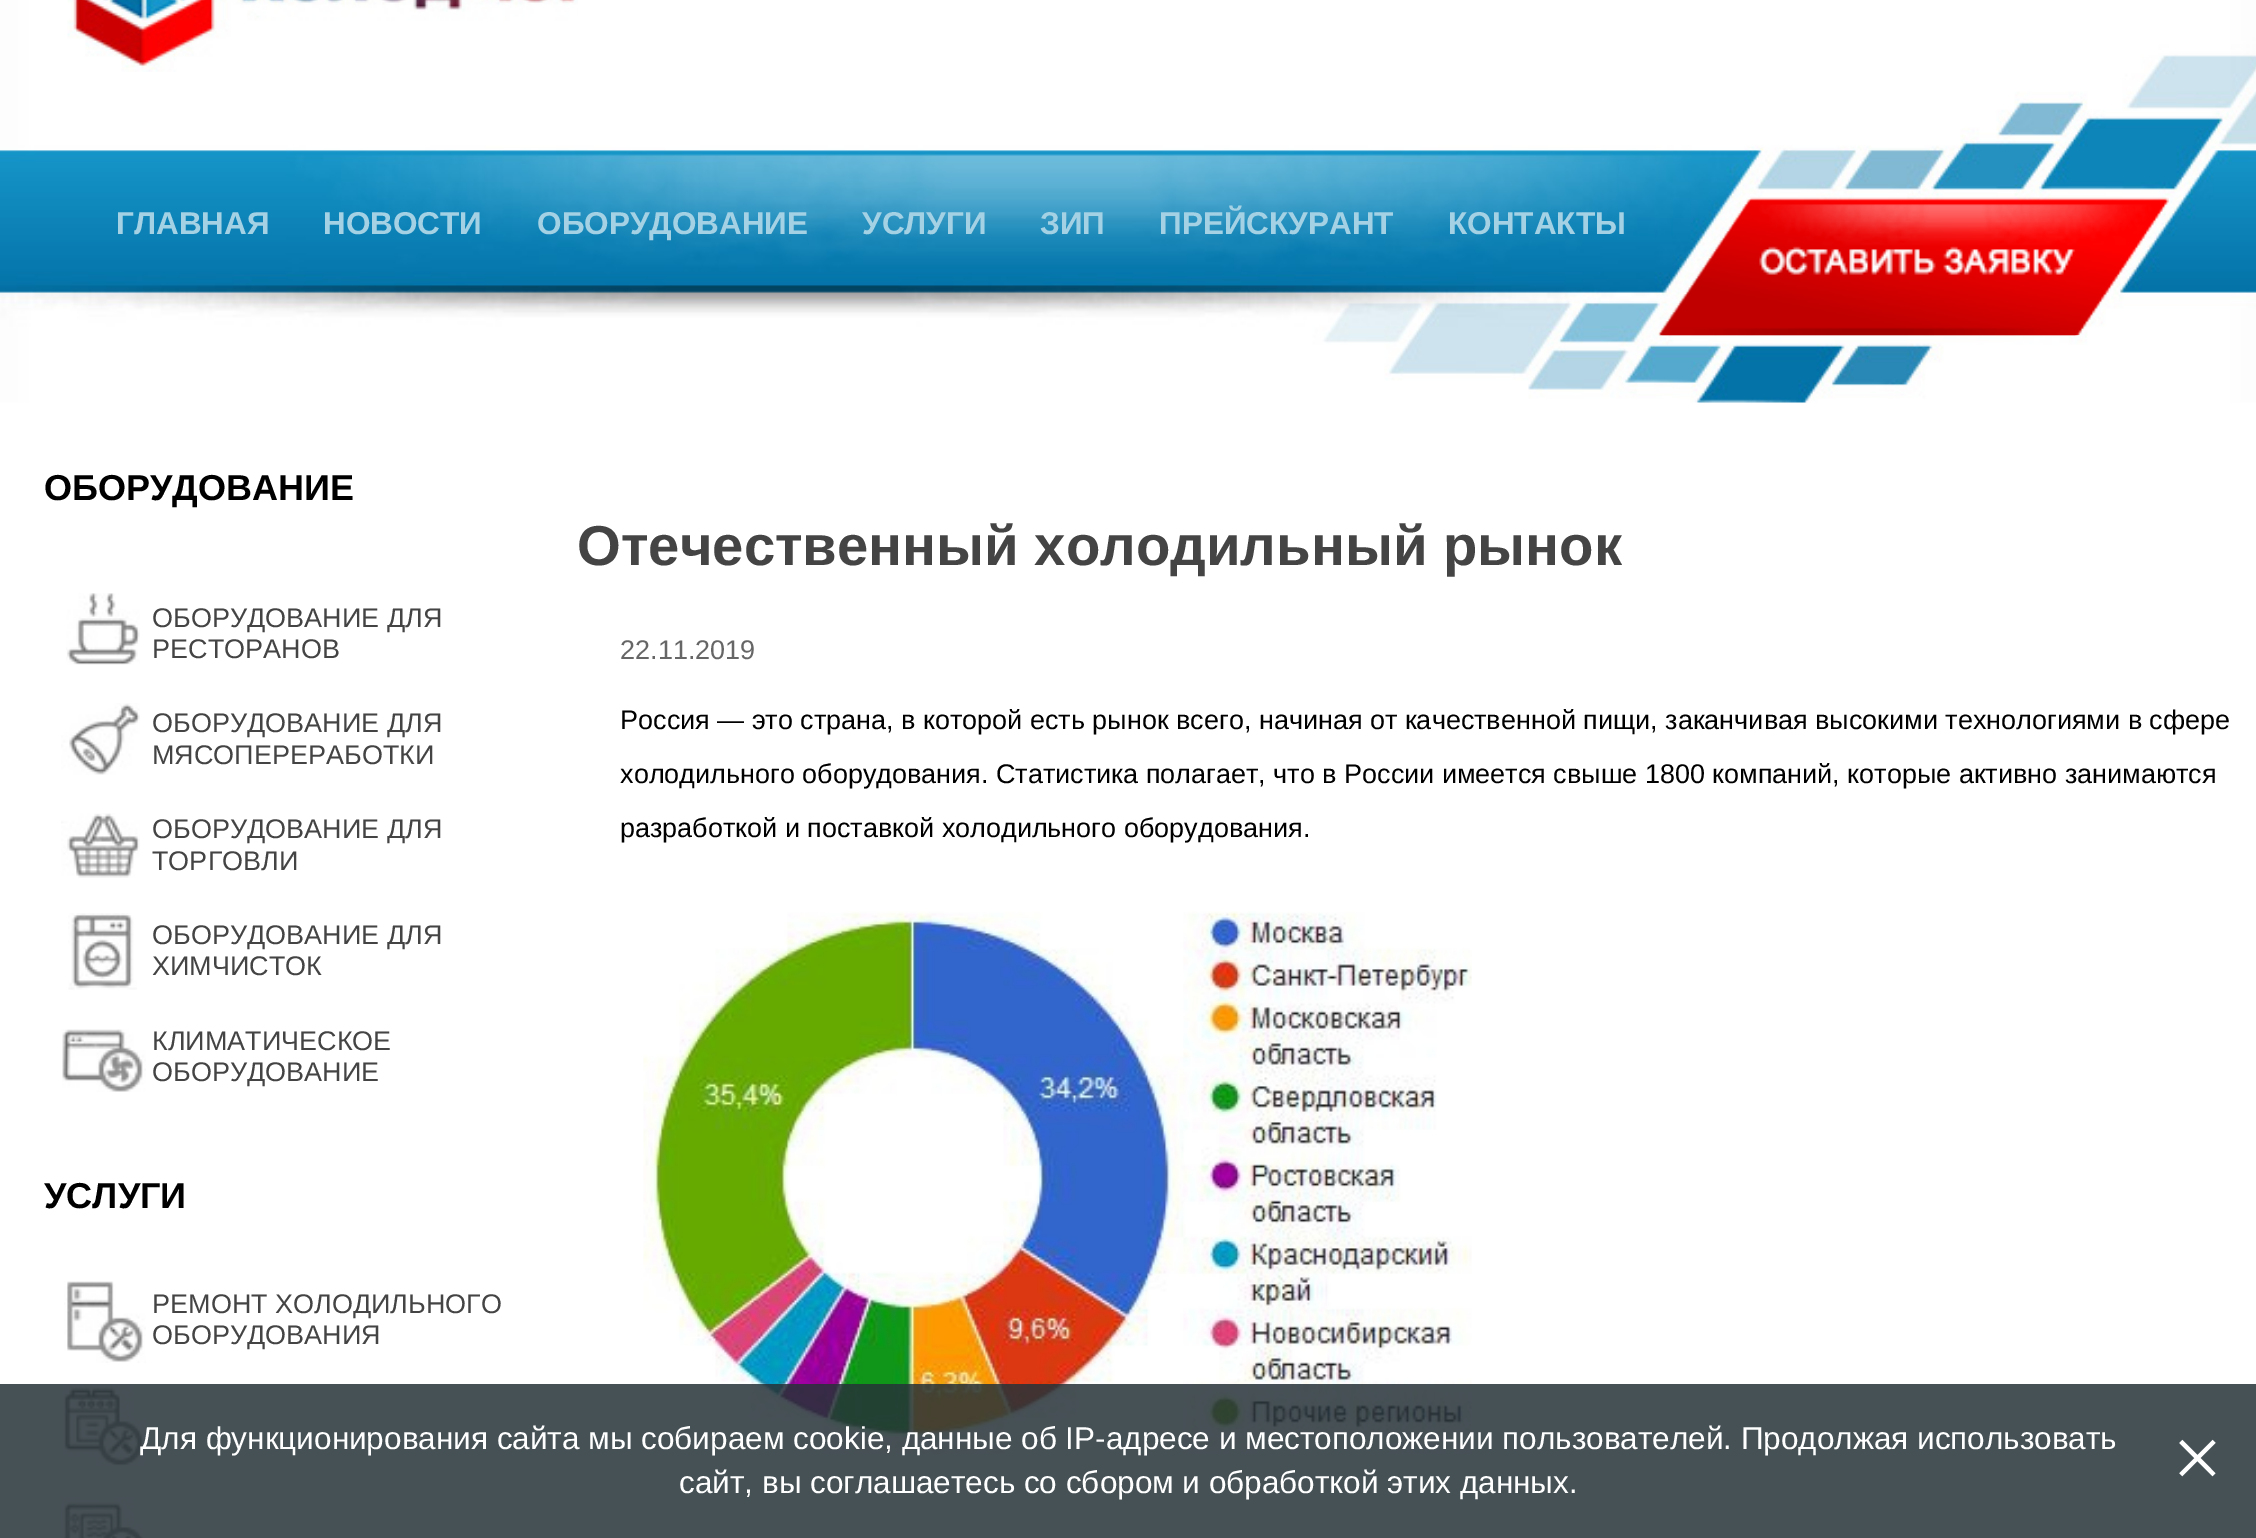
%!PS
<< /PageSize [2256 1538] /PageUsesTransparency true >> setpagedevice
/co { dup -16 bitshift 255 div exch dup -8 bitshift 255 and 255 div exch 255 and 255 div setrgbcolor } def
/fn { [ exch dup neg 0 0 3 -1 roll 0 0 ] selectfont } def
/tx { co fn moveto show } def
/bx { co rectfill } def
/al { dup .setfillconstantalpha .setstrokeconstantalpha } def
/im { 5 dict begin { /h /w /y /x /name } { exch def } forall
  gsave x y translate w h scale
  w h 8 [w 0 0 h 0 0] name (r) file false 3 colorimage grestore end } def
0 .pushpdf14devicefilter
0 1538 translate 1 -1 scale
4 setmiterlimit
0 0 2256 1538 16#FFFFFF bx
(media/1.raw) 0 0 2256 403 im
(media/2.raw) 67 0 511 72 im
(media/3.raw) 1660 197 509 138 im
(media/4.raw) 66 593 74 72 im
(media/5.raw) 61 703 79 72 im
(media/6.raw) 61 813 79 65 im
(media/7.raw) 68 913 69 77 im
(media/8.raw) 62 1029 84 63 im
(media/9.raw) 64 1281 82 82 im
(media/10.raw) 63 1384 83 82 im
(media/11.raw) 61 1497 82 41 im
(media/12.raw) 643 911 829 543 im
0.85 al
0 1384 2256 154 16#263238 bx
1 al
(ГЛАВНАЯ) 116 234 /LiberationSans-Bold 31.5 16#A4D1E4 tx
(НОВОСТИ) 323 234 /LiberationSans-Bold 31.5 16#A4D1E4 tx
(ОБОРУДОВАНИЕ) 537 234 /LiberationSans-Bold 31.5 16#A4D1E4 tx
(УСЛУГИ) 862 234 /LiberationSans-Bold 31.5 16#A4D1E4 tx
(ЗИП) 1040 234 /LiberationSans-Bold 31.5 16#A4D1E4 tx
(ПРЕЙСКУРАНТ) 1159 234 /LiberationSans-Bold 31.5 16#A4D1E4 tx
(КОНТАКТЫ) 1448 234 /LiberationSans-Bold 31.5 16#A4D1E4 tx
(OБОРУДОВАНИЕ) 44 500 /LiberationSans-Bold 36 16#000000 tx
(ОБОРУДОВАНИЕ ДЛЯ) 152 627 /LiberationSans-Regular 27 16#444444 tx
(РЕСТОРАНОВ) 152 658 /LiberationSans-Regular 27 16#444444 tx
(OБОРУДОВАНИЕ ДЛЯ) 152 732 /LiberationSans-Regular 27 16#444444 tx
(МЯСОПЕРЕРАБОТКИ) 152 764 /LiberationSans-Regular 27 16#444444 tx
(ОБОРУДОВАНИЕ ДЛЯ) 152 838 /LiberationSans-Regular 27 16#444444 tx
(ТОРГОВЛИ) 152 870 /LiberationSans-Regular 27 16#444444 tx
(ОБОРУДОВАНИЕ ДЛЯ) 152 944 /LiberationSans-Regular 27 16#444444 tx
(ХИМЧИСТОК) 152 975 /LiberationSans-Regular 27 16#444444 tx
(КЛИМАТИЧЕСКОЕ) 152 1050 /LiberationSans-Regular 27 16#444444 tx
(ОБОРУДОВАНИЕ) 152 1081 /LiberationSans-Regular 27 16#444444 tx
(УСЛУГИ) 44 1208 /LiberationSans-Bold 36 16#000000 tx
(РЕМОНТ ХОЛОДИЛЬНОГО) 152 1313 /LiberationSans-Regular 27 16#444444 tx
(ОБОРУДОВАНИЯ) 152 1344 /LiberationSans-Regular 27 16#444444 tx
(Отечественный холодильный рынок) 577 565 /LiberationSans-Bold 56.25 16#444444 tx
(22.11.2019) 620 659 /LiberationSans-Regular 27 16#666666 tx
(Россия — это страна, в которой есть рынок всего, начиная от качественной пищи, заканчивая высокими технологиями в сфере) 620 729 /LiberationSans-Regular 27 16#000000 tx
(холодильного оборудования. Статистика полагает, что в России имеется свыше 1800 компаний, которые активно занимаются) 620 783 /LiberationSans-Regular 27 16#000000 tx
(разработкой и поставкой холодильного оборудования.) 620 837 /LiberationSans-Regular 27 16#000000 tx
(Для функционирования сайта мы собираем cookie, данные об IP-адресе и местоположении пользователей. Продолжая использовать) 140 1449 /LiberationSans-Regular 31.5 16#FFFFFF tx
(×) 2172 1488 /LiberationSerif-Regular 90 16#FFFFFF tx
(сайт, вы соглашаетесь со сбором и обработкой этих данных.) 679 1493 /LiberationSans-Regular 31.5 16#FFFFFF tx
.poppdf14devicefilter showpage
